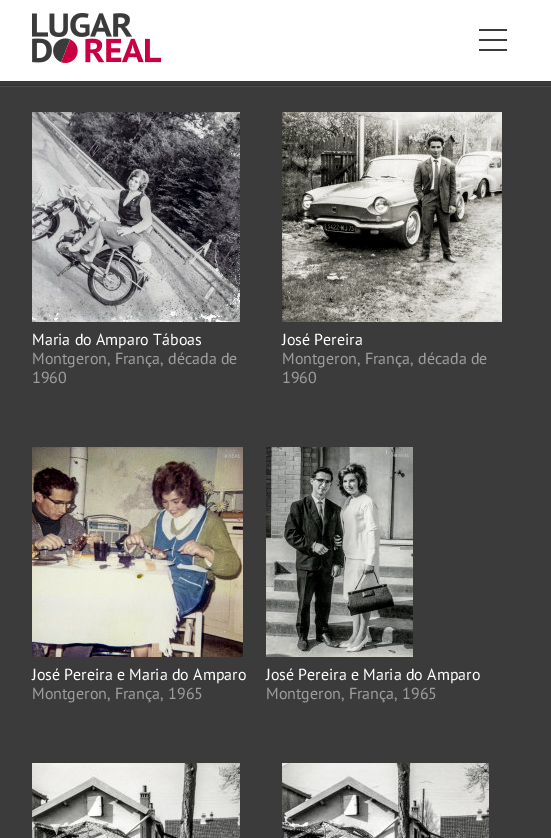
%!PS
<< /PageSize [551 838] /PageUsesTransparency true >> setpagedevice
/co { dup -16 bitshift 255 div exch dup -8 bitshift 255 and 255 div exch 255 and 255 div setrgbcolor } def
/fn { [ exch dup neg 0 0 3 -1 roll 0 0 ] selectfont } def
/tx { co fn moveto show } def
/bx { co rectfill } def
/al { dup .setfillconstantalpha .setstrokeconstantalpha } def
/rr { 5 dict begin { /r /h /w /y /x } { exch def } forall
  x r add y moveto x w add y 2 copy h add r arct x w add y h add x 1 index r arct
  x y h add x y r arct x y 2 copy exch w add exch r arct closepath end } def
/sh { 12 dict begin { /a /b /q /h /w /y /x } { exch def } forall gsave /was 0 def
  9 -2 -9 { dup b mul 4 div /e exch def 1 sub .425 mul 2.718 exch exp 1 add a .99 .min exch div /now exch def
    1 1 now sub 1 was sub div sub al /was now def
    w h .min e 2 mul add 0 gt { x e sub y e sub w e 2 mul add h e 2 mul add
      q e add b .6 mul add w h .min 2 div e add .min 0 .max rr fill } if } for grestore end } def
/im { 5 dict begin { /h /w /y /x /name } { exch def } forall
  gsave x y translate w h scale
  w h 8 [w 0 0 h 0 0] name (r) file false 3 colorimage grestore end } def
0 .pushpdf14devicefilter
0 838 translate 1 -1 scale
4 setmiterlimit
0 0 551 838 16#3B3B3B bx
16#000000 co
0 0 551 81 0 1 .3 sh
0 0 551 81 16#FFFFFF bx
(media/1.raw) 32 13 129 50 im
479 29 28 2 16#3B3B3B bx
479 39 28 2 16#3B3B3B bx
479 49 28 2 16#3B3B3B bx
0 86 551 1 16#4F4F4F bx
0 85 551 1 16#313131 bx
(media/2.raw) 32 112 208 210 im
(media/3.raw) 282 112 220 210 im
(media/4.raw) 32 447 211 210 im
(media/5.raw) 266 447 147 210 im
(media/6.raw) 32 763 208 75 im
(media/7.raw) 282 763 207 75 im
(Maria do Amparo Táboas) 32 345 /PTSans-Regular 16 16#FFFFFF tx
(Montgeron, França, década de) 32 364 /PTSans-Regular 16 16#9D9D9D tx
(1960) 32 383 /PTSans-Regular 16 16#9D9D9D tx
(José Pereira) 282 345 /PTSans-Regular 16 16#FFFFFF tx
(Montgeron, França, década de) 282 364 /PTSans-Regular 16 16#9D9D9D tx
(1960) 282 383 /PTSans-Regular 16 16#9D9D9D tx
(José Pereira e Maria do Amparo) 32 680 /PTSans-Regular 16 16#FFFFFF tx
(Montgeron, França, 1965) 32 699 /PTSans-Regular 16 16#9D9D9D tx
(José Pereira e Maria do Amparo) 266 680 /PTSans-Regular 16 16#FFFFFF tx
(Montgeron, França, 1965) 266 699 /PTSans-Regular 16 16#9D9D9D tx
.poppdf14devicefilter showpage
